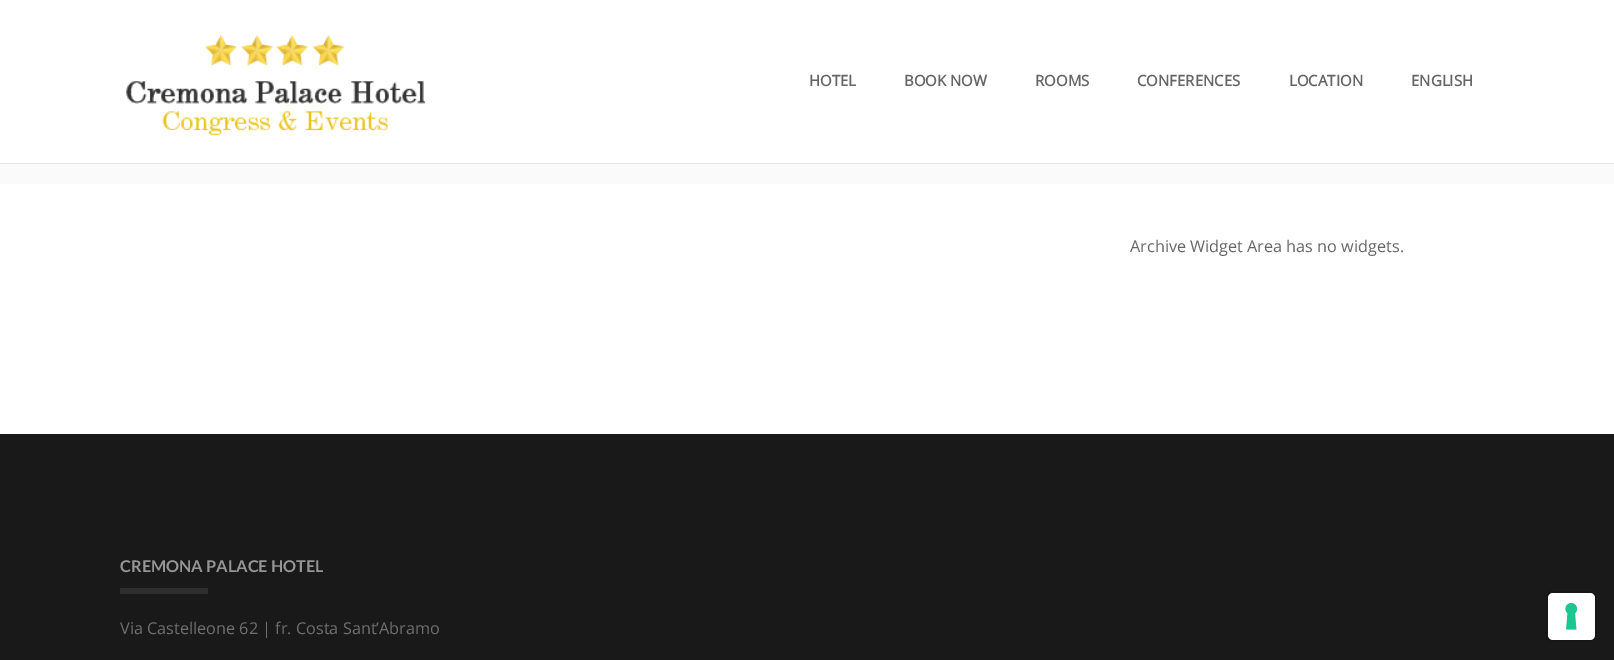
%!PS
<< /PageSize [1614 660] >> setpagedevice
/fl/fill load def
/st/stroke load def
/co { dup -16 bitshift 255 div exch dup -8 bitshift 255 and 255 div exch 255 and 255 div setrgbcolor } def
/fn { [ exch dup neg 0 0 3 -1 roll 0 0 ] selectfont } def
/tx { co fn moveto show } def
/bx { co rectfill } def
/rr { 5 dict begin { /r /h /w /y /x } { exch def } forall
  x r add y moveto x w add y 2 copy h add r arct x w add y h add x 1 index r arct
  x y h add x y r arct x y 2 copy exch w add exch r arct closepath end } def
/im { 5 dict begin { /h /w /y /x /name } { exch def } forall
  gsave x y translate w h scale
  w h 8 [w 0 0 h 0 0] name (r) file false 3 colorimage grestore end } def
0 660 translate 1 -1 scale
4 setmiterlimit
0 0 1614 660 16#FFFFFF bx
0 163 1614 1 16#E6E6E6 bx
(media/1.raw) 126 35 300 101 im
0 164 1614 20 16#FAFAFA bx
0 434 1614 226 16#191919 bx
120 588 88 6 16#2E2E2E bx
16#151515 co
1546.5 591.5 49 49 5.5 rr st
16#FFFFFF co
1548 593 47 47 5 rr fl
(media/2.raw) 1565 602 13 28 im
(HOTEL) 809 86 /OpenSans-Bold 15 16#666666 tx
(BOOK NOW) 904 86 /OpenSans-Bold 15 16#666666 tx
(ROOMS) 1035 86 /OpenSans-Bold 15 16#666666 tx
(CONFERENCES) 1137 86 /OpenSans-Bold 15 16#666666 tx
(LOCATION) 1289 86 /OpenSans-Bold 15 16#666666 tx
(ENGLISH) 1411 86 /OpenSans-Bold 15 16#666666 tx
(Archive Widget Area has no widgets.) 1130 252 /OpenSans-Regular 16.25 16#666666 tx
(CREMONA PALACE HOTEL) 120 572 /Lato-Bold 16.25 16#959595 tx
(Via Castelleone 62 | fr. Costa Sant’Abramo) 120 634 /OpenSans-Regular 16.25 16#6F6F6F tx
showpage
